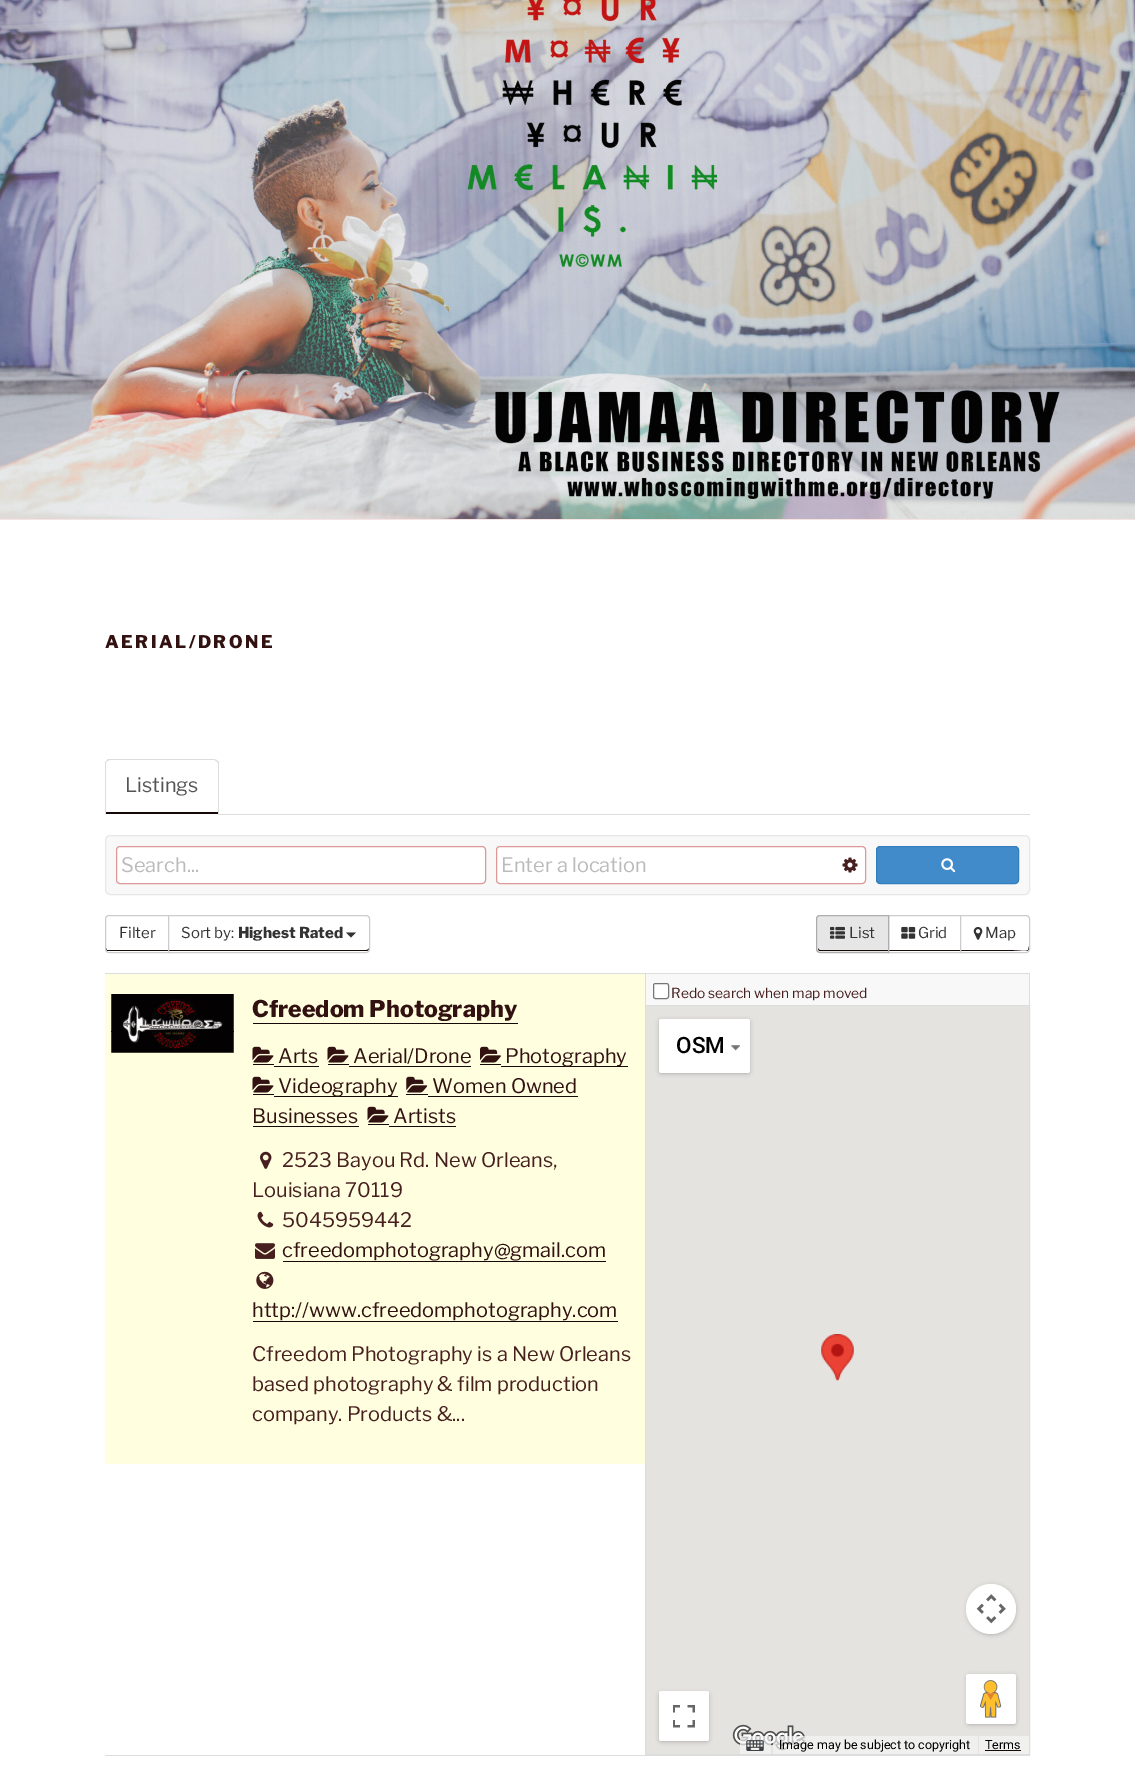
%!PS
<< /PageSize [1135 1788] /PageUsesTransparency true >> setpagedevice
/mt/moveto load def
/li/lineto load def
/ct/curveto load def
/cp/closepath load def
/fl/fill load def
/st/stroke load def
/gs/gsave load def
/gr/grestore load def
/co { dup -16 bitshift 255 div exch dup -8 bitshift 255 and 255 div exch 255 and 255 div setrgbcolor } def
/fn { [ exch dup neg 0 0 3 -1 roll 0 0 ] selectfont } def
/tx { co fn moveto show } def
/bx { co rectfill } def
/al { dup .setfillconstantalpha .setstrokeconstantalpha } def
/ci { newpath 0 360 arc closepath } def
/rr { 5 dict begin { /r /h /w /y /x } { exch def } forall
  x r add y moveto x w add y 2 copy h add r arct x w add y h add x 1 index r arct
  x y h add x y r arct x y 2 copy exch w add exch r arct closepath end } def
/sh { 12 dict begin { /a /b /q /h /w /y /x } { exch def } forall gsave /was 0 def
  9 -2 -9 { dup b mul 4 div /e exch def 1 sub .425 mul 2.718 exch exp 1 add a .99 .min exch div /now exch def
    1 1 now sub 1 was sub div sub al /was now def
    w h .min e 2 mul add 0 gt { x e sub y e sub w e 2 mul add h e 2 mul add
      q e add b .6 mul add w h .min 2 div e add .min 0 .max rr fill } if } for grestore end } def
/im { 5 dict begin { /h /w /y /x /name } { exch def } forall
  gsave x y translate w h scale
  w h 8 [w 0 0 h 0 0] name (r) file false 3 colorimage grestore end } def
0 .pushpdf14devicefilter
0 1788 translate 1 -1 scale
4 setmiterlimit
0 0 1135 1788 16#FFFFFF bx
0 519 1135 1 16#F6E4E4 bx
(media/1.raw) 0 0 1135 519 im
219 814 811 1 16#DDDDDD bx
106 812 112 2 16#170808 bx
16#DDDDDD co
110 759 mt 109 759 107 759 107 760 ct 107 761 li 110 760 li 214 760 li 216 761 li 217 760 li 214 759 li cp fl
217 760 mt 219 762 li 219 815 li 218 814 li 218 763 li 216 761 li cp fl
105 815 mt 106 814 li 106 763 li 107 761 li 107 760 li 106 761 105 762 105 764 ct cp fl
16#F8F8F8 co
105.5 835.5 924 59 4.5 rr gs fl gr
16#E7E7E7 co
st
16#FFFFFF co
116.5 846.5 369 37 3.5 rr gs fl gr
16#DD9898 co
st
16#FFFFFF co
496.5 846.5 369 37 3.5 rr gs fl gr
16#DD9898 co
st
(media/2.raw) 842 857 16 16 im
16#428BCA co
876.5 846.5 142 37 3.5 rr gs fl gr
16#357EBD co
st
(media/3.raw) 941 858 15 15 im
105 973 925 1 16#DDDDDD bx
16#170808 co
106 948 mt 106 950 107 951 108 951 ct 168 951 li 168 950 li 107 950 li cp fl
16#CCCCCC co
109 915.5 mt 168.5 915.5 li 168.5 952.5 li 109 952.5 li 107 952.5 105.5 951 105.5 949 ct 105.5 919 li 105.5 917 107 915.5 109 915.5 ct cp st
16#FFFFFF co
168 915 mt 366 915 li 368 915 370 917 370 919 ct 370 949 li 370 951 368 953 366 953 ct 168 953 li cp fl
16#170808 co
169 950 mt 169 951 li 366 951 li 368 951 369 950 369 948 ct 369 949 368 950 366 950 ct cp fl
16#CCCCCC co
168.5 915.5 mt 366 915.5 li 368 915.5 369.5 917 369.5 919 ct 369.5 949 li 369.5 951 368 952.5 366 952.5 ct 168.5 952.5 li cp st
16#333333 co
346 932.5 mt 356 932.5 li 351 937.5 li cp fl
889 950 71 1 16#170808 bx
16#CCCCCC co
888.5 915.5 72 37 rectstroke
16#E6E6E6 co
820 915 mt 889 915 li 889 953 li 820 953 li 818 953 816 951 816 949 ct 816 919 li 816 917 818 915 820 915 ct cp fl
16#170808 co
818 948 mt 818 950 819 951 820 951 ct 888 951 li 888 950 li 820 950 li 819 950 818 949 818 948 ct cp fl
16#ADADAD co
820 915.5 mt 888.5 915.5 li 888.5 952.5 li 820 952.5 li 818 952.5 816.5 951 816.5 949 ct 816.5 919 li 816.5 917 818 915.5 820 915.5 ct cp st
(media/4.raw) 830 926 15 13 im
(media/5.raw) 901 926 15 13 im
16#FFFFFF co
960 915 mt 1026 915 li 1028 915 1030 917 1030 919 ct 1030 949 li 1030 951 1028 953 1026 953 ct 960 953 li cp fl
16#170808 co
961 950 mt 961 951 li 1026 951 li 1028 951 1029 950 1029 948 ct 1029 946 li 1029 948 1028 949 1028 950 ct 1025 952 1020 950 1005 950 ct cp 1029 919 mt 1029 918 li cp eofill
16#CCCCCC co
960.5 915.5 mt 1026 915.5 li 1028 915.5 1029.5 917 1029.5 919 ct 1029.5 949 li 1029.5 951 1028 952.5 1026 952.5 ct 960.5 952.5 li cp st
(media/6.raw) 973 927 10 13 im
105 974 540 490 16#FFFFE0 bx
(media/7.raw) 111 994 123 59 im
253 1023 265 1 16#170808 bx
253 1064 21 1 16#170808 bx
274 1066 45 1 16#170808 bx
(media/8.raw) 252 1046 22 17 im
328 1064 21 1 16#170808 bx
349 1066 122 1 16#170808 bx
(media/8.raw) 327 1046 22 17 im
480 1064 21 1 16#170808 bx
501 1066 127 1 16#170808 bx
(media/9.raw) 480 1046 21 17 im
406 1094 22 1 16#170808 bx
428 1096 150 1 16#170808 bx
253 1126 106 1 16#170808 bx
(media/10.raw) 406 1076 22 17 im
253 1094 21 1 16#170808 bx
274 1096 124 1 16#170808 bx
(media/8.raw) 252 1076 22 17 im
368 1124 21 1 16#170808 bx
389 1126 67 1 16#170808 bx
(media/8.raw) 367 1106 22 17 im
(media/11.raw) 260 1151 12 18 im
(media/12.raw) 257 1211 17 17 im
(media/13.raw) 255 1243 20 16 im
283 1261 323 1 16#170808 bx
(media/14.raw) 256 1271 18 18 im
253 1321 365 1 16#170808 bx
646 974 383 31 16#F8F8F8 bx
1029 973 1 32 16#DDDDDD bx
645 973 1 32 16#DDDDDD bx
16#FFFFFF co
653.5 983.5 15 15 2 rr gs fl gr
16#767676 co
st
16#DDDDDD co
645.5 1005.5 384 749 rectstroke
646 1006 383 748 16#E5E3DF bx
16#000000 co
660 1021 89 52 1 2.5 .3 sh
16#FFFFFF co
659 1019 91 54 2.5 rr fl
(media/15.raw) 731 1045 9 6 im
(media/16.raw) 821 1334 33 47 im
16#000000 co
660 1694 48 47 1 2.5 .3 sh
16#FFFFFF co
659 1691 50 50 2.5 rr fl
(media/17.raw) 673 1705 22 23 im
(media/18.raw) 732 1724 74 27 im
16#000000 co
968 1586 47 48 23.5 2.5 .3 sh
16#FFFFFF co
991 1609 25 ci fl
(media/19.raw) 976 1594 30 30 im
16#000000 co
968 1676 47 48 1 2.5 .3 sh
16#FFFFFF co
966 1674 50 50 2.5 rr fl
(media/20.raw) 980 1680 22 38 im
0.7 al
740 1736 31 18 16#F5F5F5 bx
1 al
(media/21.raw) 746 1740 18 11 im
0.7 al
773 1736 205 18 16#F5F5F5 bx
1 al
979 1736 50 18 16#F0F0EE bx
985 1750 36 1 16#170808 bx
105 1755 925 1 16#DDDDDD bx
/LibreFranklin-Thin 17.5 fn
16#321111 co
105 648 mt 2.5 0 (AERIAL/DRONE) ashow
(Listings) 125 792 /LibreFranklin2-Thin 20 16#555555 tx
(Search...) 121 872 /LibreFranklin2-Thin 20 16#BBBBBB tx
(Enter a location) 501 872 /LibreFranklin2-Thin 20 16#BBBBBB tx
(Filter) 119 938 /LibreFranklin2-Thin 15 16#333333 tx
(Sort by:) 181 938 /LibreFranklin2-Thin 15 16#333333 tx
(Highest Rated) 238 938 /LibreFranklin-Thin 15 16#333333 tx
(List) 849 938 /LibreFranklin2-Thin 15 16#333333 tx
(Grid) 918 938 /LibreFranklin2-Thin 15 16#333333 tx
(Map) 985 938 /LibreFranklin2-Thin 15 16#333333 tx
(Cfreedom Photography) 252 1017 /LibreFranklin-Thin 23 16#321111 tx
(Arts) 278 1063 /LibreFranklin2-Thin 20 16#321111 tx
(Aerial/Drone) 353 1063 /LibreFranklin2-Thin 20 16#321111 tx
(Photography) 505 1063 /LibreFranklin2-Thin 20 16#321111 tx
(Women Owned) 432 1093 /LibreFranklin2-Thin 20 16#321111 tx
(Businesses) 252 1123 /LibreFranklin2-Thin 20 16#321111 tx
(Videography) 278 1093 /LibreFranklin2-Thin 20 16#321111 tx
(Artists) 393 1123 /LibreFranklin2-Thin 20 16#321111 tx
(2523 Bayou Rd. New Orleans,) 282 1167 /LibreFranklin2-Thin 20 16#471F1F tx
(Louisiana 70119) 252 1197 /LibreFranklin2-Thin 20 16#471F1F tx
(5045959442) 282 1227 /LibreFranklin2-Thin 20 16#471F1F tx
(cfreedomphotography@gmail.com) 282 1257 /LibreFranklin2-Thin 20 16#321111 tx
(http://www.cfreedomphotography.com) 252 1317 /LibreFranklin2-Thin 20 16#321111 tx
(Cfreedom Photography is a New Orleans) 252 1361 /LibreFranklin2-Thin 20 16#471F1F tx
(based photography & film production) 252 1391 /LibreFranklin2-Thin 20 16#471F1F tx
(company. Products &...) 252 1421 /LibreFranklin2-Thin 20 16#471F1F tx
(Redo search when map moved) 671 998 /LibreFranklin2-Thin 13.75 16#471F1F tx
(OSM) 676 1053 /Roboto-Medium 22.5 16#000000 tx
(Image may be subject to copyright) 779 1749 /Roboto-Regular 12.5 16#000000 tx
(Terms) 985 1749 /Roboto-Regular 12.5 16#000000 tx
.poppdf14devicefilter showpage
